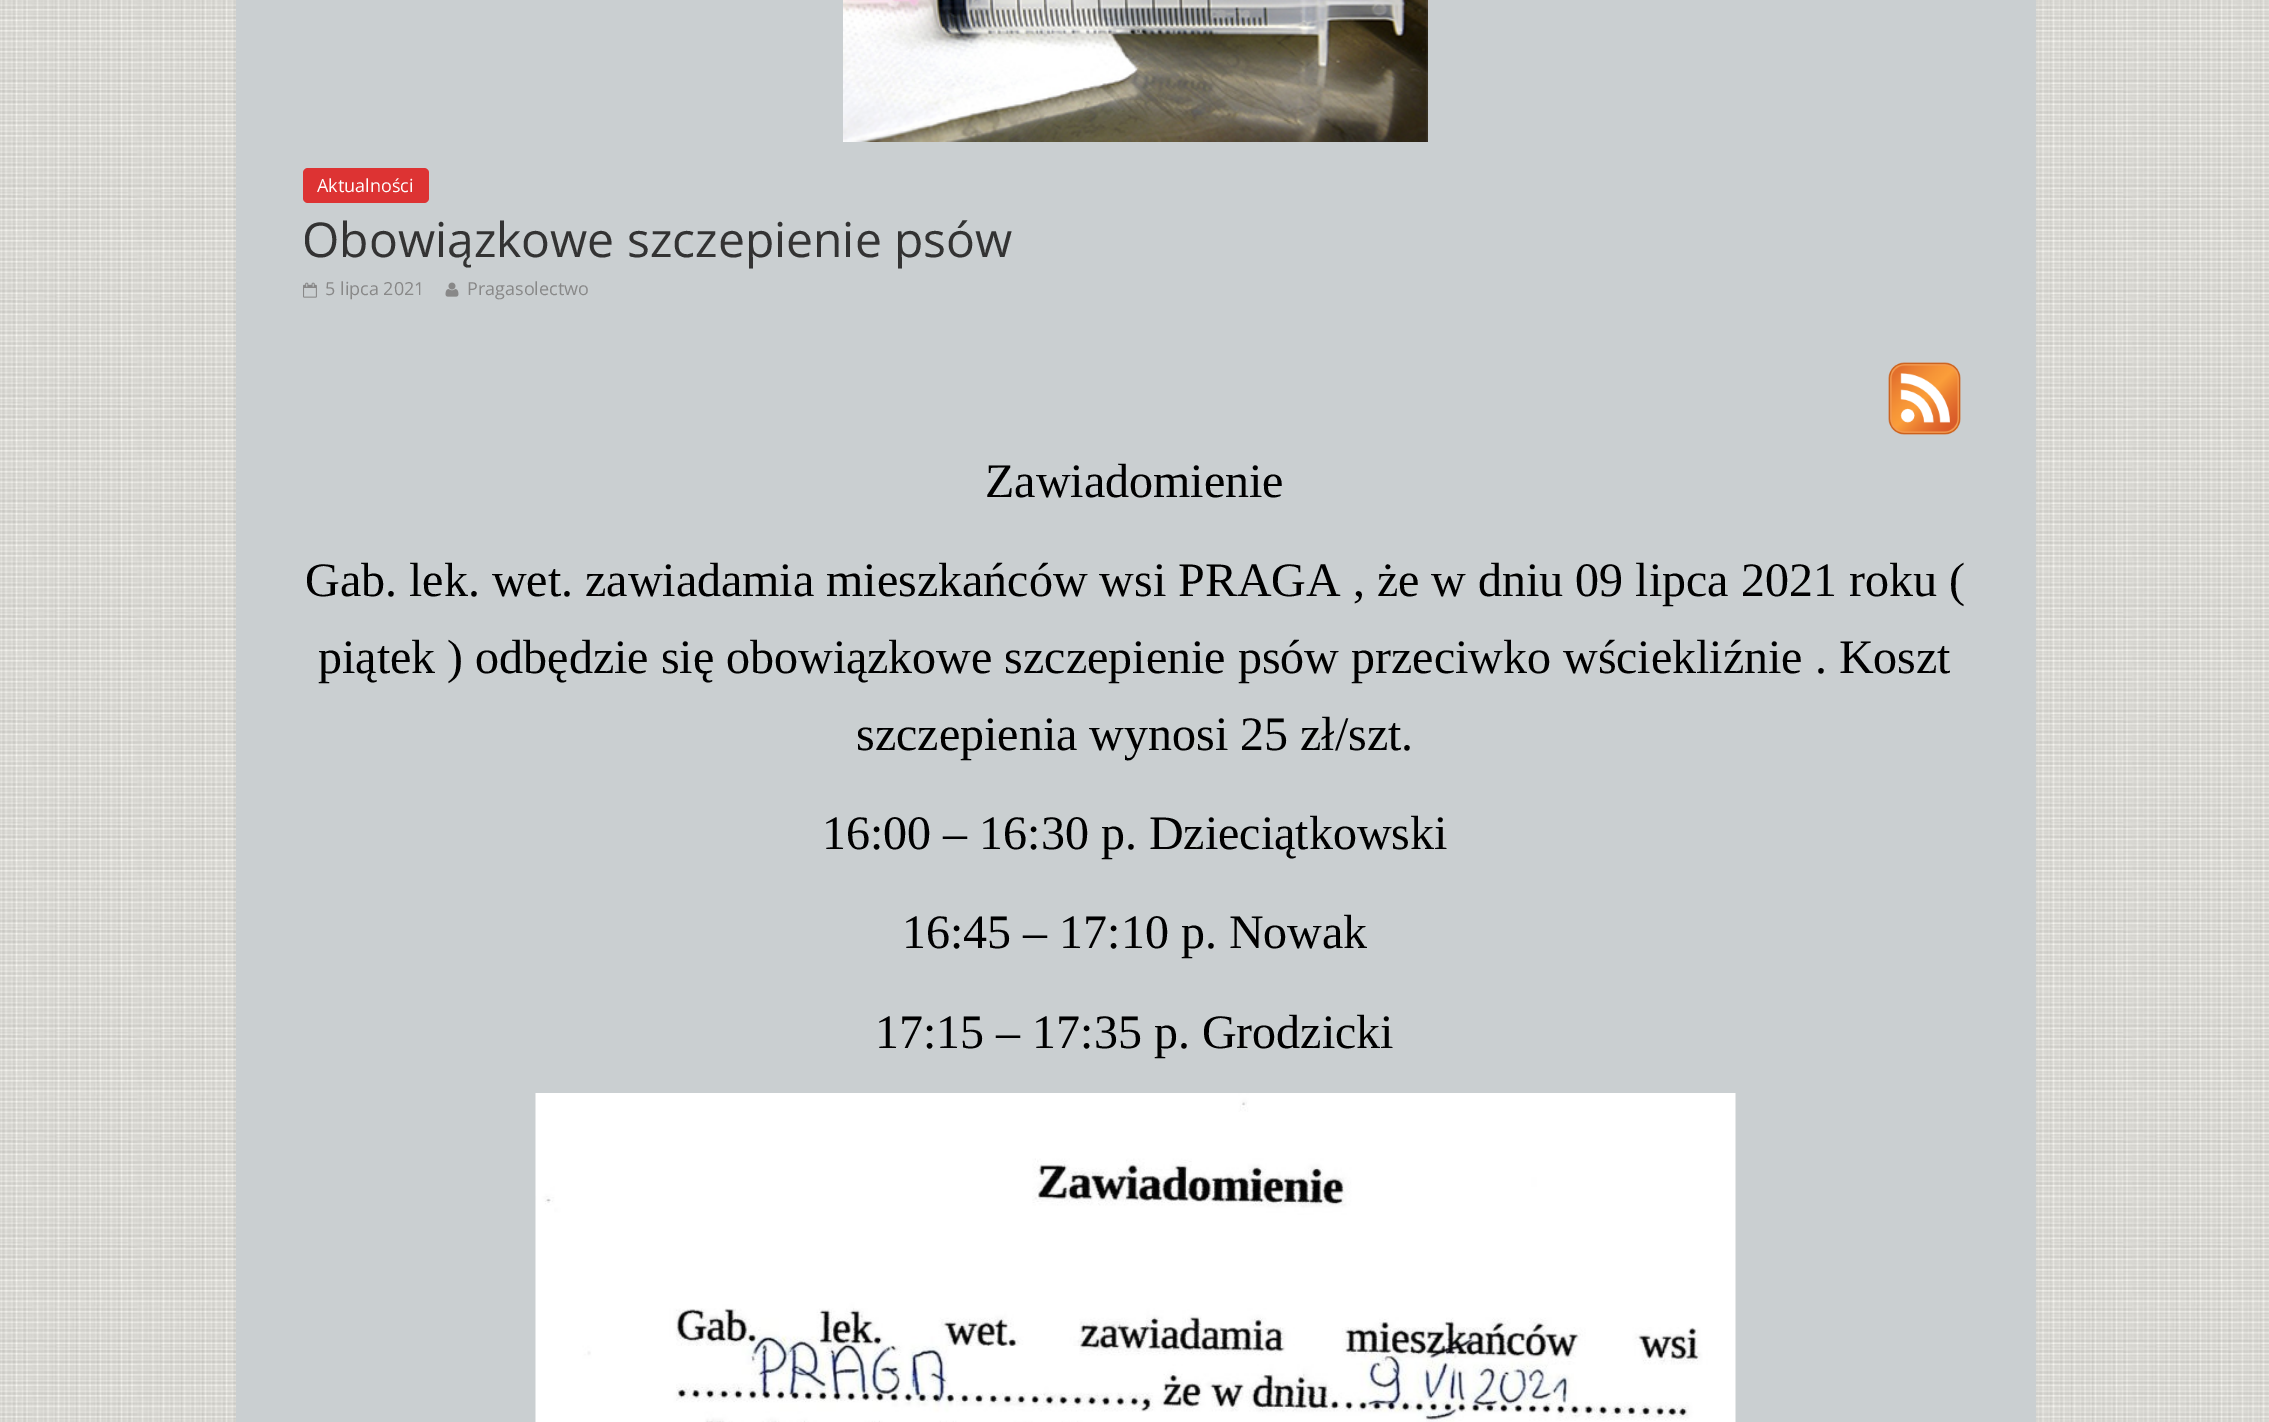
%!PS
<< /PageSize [2269 1422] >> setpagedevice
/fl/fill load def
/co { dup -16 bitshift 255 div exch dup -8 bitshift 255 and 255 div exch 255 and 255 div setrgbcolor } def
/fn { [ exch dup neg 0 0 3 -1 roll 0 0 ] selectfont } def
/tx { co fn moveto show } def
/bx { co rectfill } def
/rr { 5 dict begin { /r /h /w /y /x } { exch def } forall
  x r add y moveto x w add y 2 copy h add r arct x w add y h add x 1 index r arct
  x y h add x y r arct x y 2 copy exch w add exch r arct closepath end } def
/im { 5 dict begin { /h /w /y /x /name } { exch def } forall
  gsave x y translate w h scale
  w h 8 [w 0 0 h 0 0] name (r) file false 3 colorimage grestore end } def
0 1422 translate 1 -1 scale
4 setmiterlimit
0 0 2269 1422 16#FFFFFF bx
(media/1.raw) 0 0 2269 1422 im
236 0 1800 1422 16#CACFD1 bx
(media/2.raw) 843 0 585 142 im
16#DD3333 co
303 168 126 35 5 rr fl
(media/3.raw) 303 282 14 16 im
(media/4.raw) 445 282 14 15 im
(media/5.raw) 1888 362 73 73 im
(media/6.raw) 535 1093 1201 329 im
(Aktualności) 317 192 /OpenSans-Regular 18 16#FFFFFF tx
(Obowiązkowe szczepienie psów) 302 257 /OpenSans-Regular 48 16#333333 tx
(5 lipca 2021) 325 295 /OpenSans-Regular 18 16#888888 tx
(Pragasolectwo) 467 295 /OpenSans-Regular 18 16#888888 tx
(Zawiadomienie) 985 497 /LiberationSerif-Regular 48 16#000000 tx
(Gab. lek. wet. zawiadamia mieszkańców wsi PRAGA , że w dniu 09 lipca 2021 roku \() 305 596 /LiberationSerif-Regular 48 16#000000 tx
(piątek \) odbędzie się obowiązkowe szczepienie psów przeciwko wściekliźnie . Koszt) 318 673 /LiberationSerif-Regular 48 16#000000 tx
(szczepienia wynosi 25 zł/szt.) 856 750 /LiberationSerif-Regular 48 16#000000 tx
(16:00 – 16:30 p. Dzieciątkowski) 822 849 /LiberationSerif-Regular 48 16#000000 tx
(16:45 – 17:10 p. Nowak) 902 948 /LiberationSerif-Regular 48 16#000000 tx
(17:15 – 17:35 p. Grodzicki) 875 1048 /LiberationSerif-Regular 48 16#000000 tx
showpage
